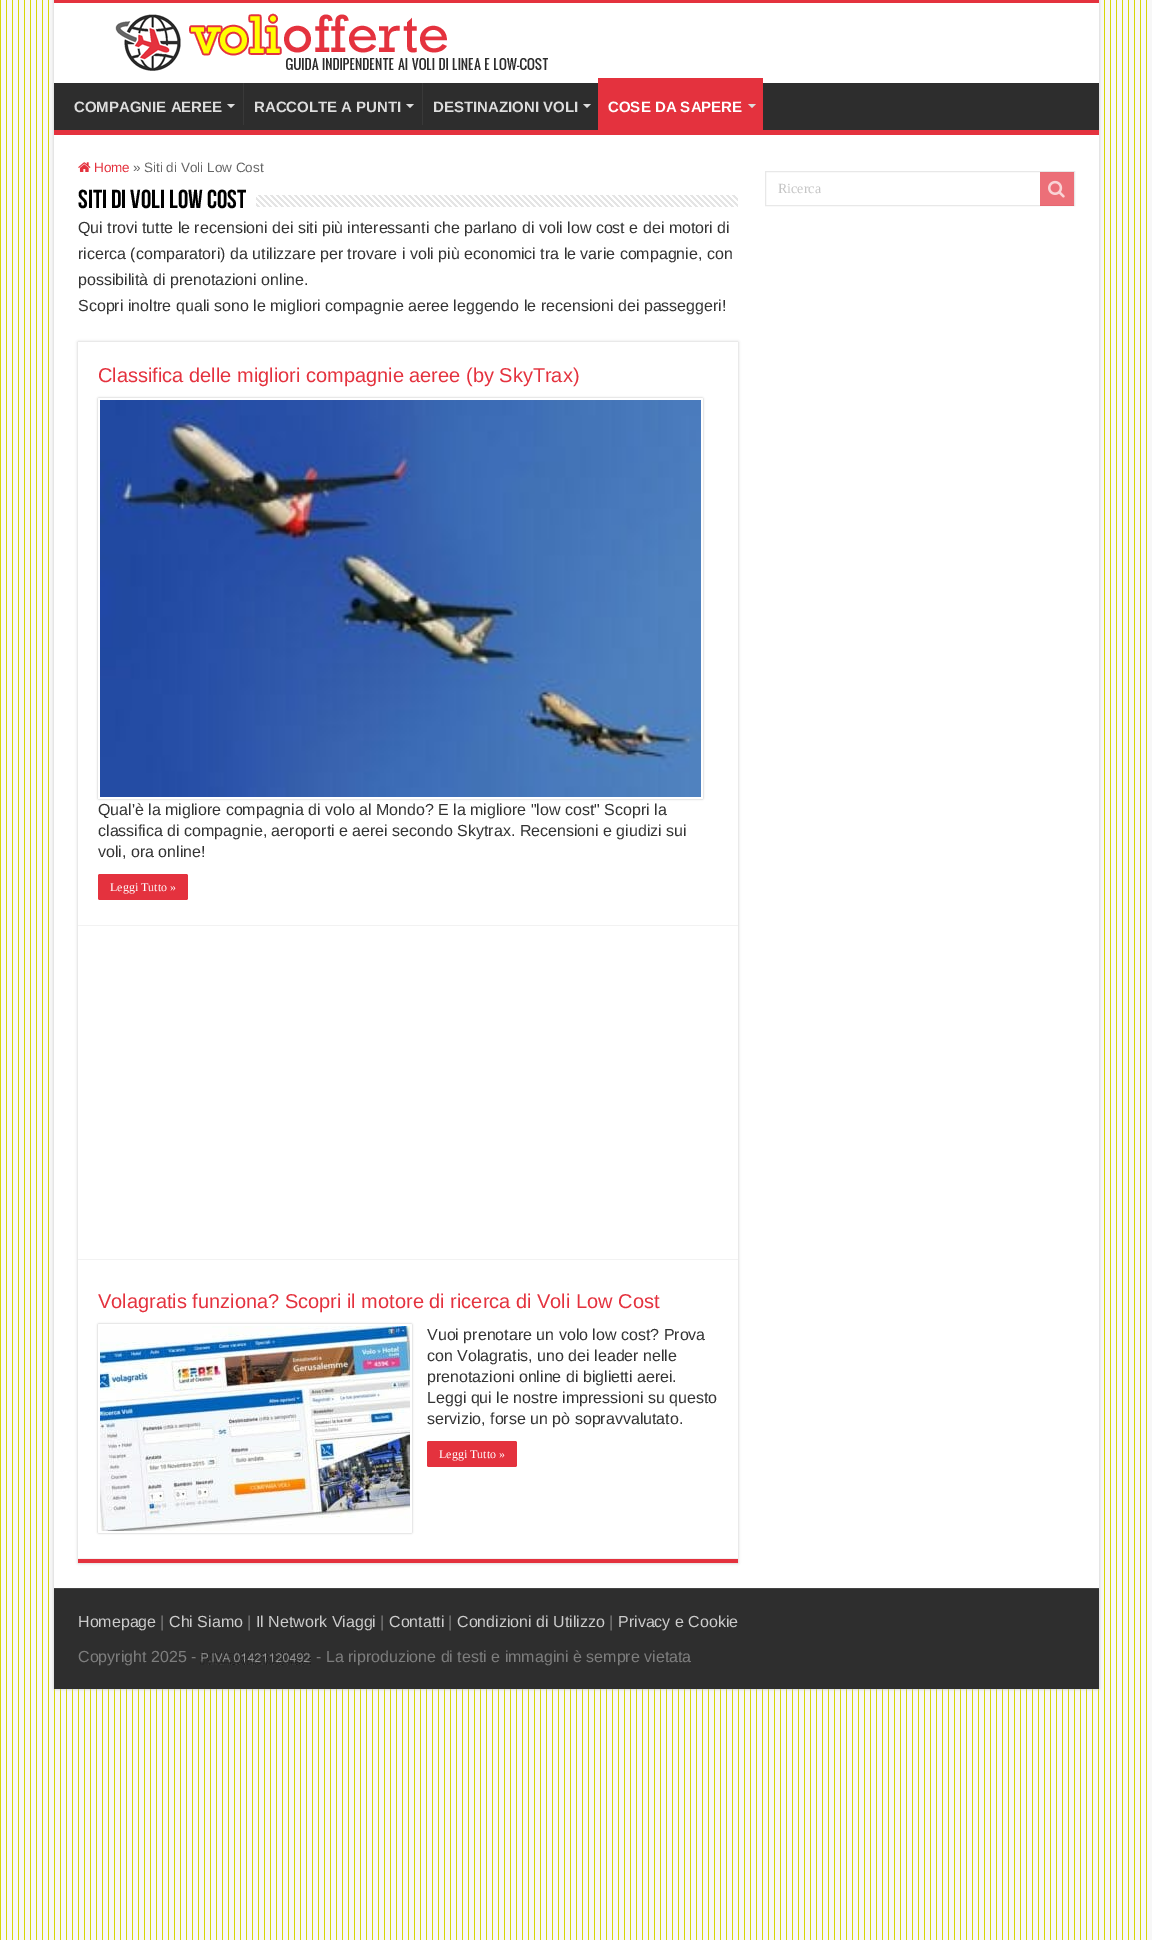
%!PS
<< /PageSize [1152 1940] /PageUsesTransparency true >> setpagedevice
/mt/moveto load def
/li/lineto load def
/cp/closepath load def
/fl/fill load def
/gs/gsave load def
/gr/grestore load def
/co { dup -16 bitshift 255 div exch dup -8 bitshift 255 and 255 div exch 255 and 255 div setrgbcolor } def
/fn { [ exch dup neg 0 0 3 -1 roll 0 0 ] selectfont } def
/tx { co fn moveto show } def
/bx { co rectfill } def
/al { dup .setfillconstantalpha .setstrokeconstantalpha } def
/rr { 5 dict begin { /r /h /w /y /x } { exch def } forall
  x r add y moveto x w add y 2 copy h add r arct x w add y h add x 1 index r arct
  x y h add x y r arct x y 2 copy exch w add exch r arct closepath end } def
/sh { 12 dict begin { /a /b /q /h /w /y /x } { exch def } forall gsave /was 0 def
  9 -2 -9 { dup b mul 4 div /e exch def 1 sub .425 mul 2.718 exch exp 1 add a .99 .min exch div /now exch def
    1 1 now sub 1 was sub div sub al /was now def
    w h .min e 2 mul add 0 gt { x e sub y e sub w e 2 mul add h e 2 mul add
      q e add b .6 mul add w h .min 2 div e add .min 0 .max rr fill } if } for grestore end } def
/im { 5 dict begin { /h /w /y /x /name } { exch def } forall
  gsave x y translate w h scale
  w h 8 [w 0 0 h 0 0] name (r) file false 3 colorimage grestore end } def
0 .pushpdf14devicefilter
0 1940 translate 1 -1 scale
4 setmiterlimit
0 0 1152 1940 16#FFFFFF bx
(media/1.raw) 0 0 1152 1940 im
16#CACACA co
54 0 1045 1689 0 1.5 1 sh
54 3 1045 1585 16#FFFFFF bx
54 0 1045 3 16#E4323E bx
(media/2.raw) 115 13 433 58 im
54 83 1045 47 16#2D2D2D bx
54 130 1045 5 16#E4323E bx
16#DDDDDD co
227 104 mt 235 104 li 231 108 li cp fl
243 83 1 42 16#393939 bx
16#DDDDDD co
406 104 mt 414 104 li 410 108 li cp fl
422 83 1 42 16#393939 bx
16#DDDDDD co
583 104 mt 591 104 li 587 108 li cp fl
598 78 165 52 16#E4323E bx
16#DDDDDD co
748 104 mt 756 104 li 752 108 li cp fl
(media/3.raw) 78 162 13 10 im
(media/4.raw) 256 195 482 12 im
gs
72 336 mt 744 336 li 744 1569 li 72 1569 li cp 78 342 mt 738 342 li 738 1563 li 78 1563 li cp eoclip newpath
16#CACACA co
78 342 660 1221 0 1.5 1 sh
gr
78 1559 660 4 16#E4323E bx
78 925 660 1 16#F2F2F2 bx
16#B5B5B5 co
98 398 605 401 1 1 1 sh
16#FFFFFF co
98 398 605 401 1 rr fl
(media/5.raw) 100 400 601 397 im
16#E4323E co
98 874 90 26 2 rr fl
78 1259 660 1 16#F2F2F2 bx
78 1558 660 1 16#F2F2F2 bx
16#B5B5B5 co
98 1324 314 209 1 1 1 sh
16#FFFFFF co
98 1324 314 209 1 rr fl
(media/6.raw) 100 1326 310 205 im
16#E4323E co
427 1441 90 26 2 rr fl
16#E8E8E8 co
765.5 171.5 309 34 rectstroke
0.7 al
1040 172 34 34 16#E4323E bx
1 al
(media/7.raw) 1048 180 17 18 im
54 1589 1045 100 16#2E2E2E bx
54 1588 1045 1 16#444444 bx
(media/8.raw) 200 1652 111 13 im
(COMPAGNIE AEREE) 74 112 /LiberationSans-Bold 15 16#DDDDDD tx
(RACCOLTE A PUNTI) 254 112 /LiberationSans-Bold 15 16#DDDDDD tx
(DESTINAZIONI VOLI) 433 112 /LiberationSans-Bold 15 16#DDDDDD tx
(COSE DA SAPERE) 608 112 /LiberationSans-Bold 15 16#FFFFFF tx
(Home) 94 172 /LiberationSans-Regular 13.5 16#E4323E tx
(») 133 172 /LiberationSans-Regular 13.5 16#666666 tx
(Siti di Voli Low Cost) 144 172 /LiberationSans-Regular 13.5 16#666666 tx
(Siti di Voli Low Cost) 78 208 /BebasNeue-Bold 26 16#000000 tx
(Qui trovi tutte le recensioni dei siti più interessanti che parlano di voli low cost e dei motori di) 78 233 /LiberationSans-Regular 16 16#333333 tx
(ricerca \(comparatori\) da utilizzare per trovare i voli più economici tra le varie compagnie, con) 78 259 /LiberationSans-Regular 16 16#333333 tx
(possibilità di prenotazioni online.) 78 285 /LiberationSans-Regular 16 16#333333 tx
(Scopri inoltre quali sono le migliori compagnie aeree leggendo le recensioni dei passeggeri!) 78 311 /LiberationSans-Regular 16 16#333333 tx
(Classifica delle migliori compagnie aeree \(by SkyTrax\)) 98 382 /LiberationSans-Regular 20 16#E4323E tx
(Qual'è la migliore compagnia di volo al Mondo? E la migliore "low cost" Scopri la) 98 815 /LiberationSans-Regular 16 16#333333 tx
(classifica di compagnie, aeroporti e aerei secondo Skytrax. Recensioni e giudizi sui) 98 836 /LiberationSans-Regular 16 16#333333 tx
(voli, ora online!) 98 857 /LiberationSans-Regular 16 16#333333 tx
(Leggi Tutto ») 110 891 /LiberationSerif-Regular 12 16#FFFFFF tx
(Volagratis funziona? Scopri il motore di ricerca di Voli Low Cost) 98 1308 /LiberationSans-Regular 20 16#E4323E tx
(Vuoi prenotare un volo low cost? Prova) 427 1340 /LiberationSans-Regular 16 16#333333 tx
(con Volagratis, uno dei leader nelle) 427 1361 /LiberationSans-Regular 16 16#333333 tx
(prenotazioni online di biglietti aerei.) 427 1382 /LiberationSans-Regular 16 16#333333 tx
(Leggi qui le nostre impressioni su questo) 427 1403 /LiberationSans-Regular 16 16#333333 tx
(servizio, forse un pò sopravvalutato.) 427 1424 /LiberationSans-Regular 16 16#333333 tx
(Leggi Tutto ») 439 1458 /LiberationSerif-Regular 12 16#FFFFFF tx
(Ricerca) 778 193 /LiberationSerif-Regular 14 16#C5C5C5 tx
(Homepage) 78 1627 /LiberationSans-Regular 16 16#CCCCCC tx
(|) 160 1627 /LiberationSans-Regular 16 16#7D7D7D tx
(Chi Siamo) 169 1627 /LiberationSans-Regular 16 16#CCCCCC tx
(|) 247 1627 /LiberationSans-Regular 16 16#7D7D7D tx
(Il Network Viaggi) 256 1627 /LiberationSans-Regular 16 16#CCCCCC tx
(|) 380 1627 /LiberationSans-Regular 16 16#7D7D7D tx
(Contatti) 389 1627 /LiberationSans-Regular 16 16#CCCCCC tx
(|) 448 1627 /LiberationSans-Regular 16 16#7D7D7D tx
(Condizioni di Utilizzo) 457 1627 /LiberationSans-Regular 16 16#CCCCCC tx
(|) 609 1627 /LiberationSans-Regular 16 16#7D7D7D tx
(Privacy e Cookie) 618 1627 /LiberationSans-Regular 16 16#CCCCCC tx
(Copyright 2025 -) 78 1662 /LiberationSans-Regular 16 16#7D7D7D tx
(- La riproduzione di testi e immagini è sempre vietata) 316 1662 /LiberationSans-Regular 16 16#7D7D7D tx
.poppdf14devicefilter showpage
